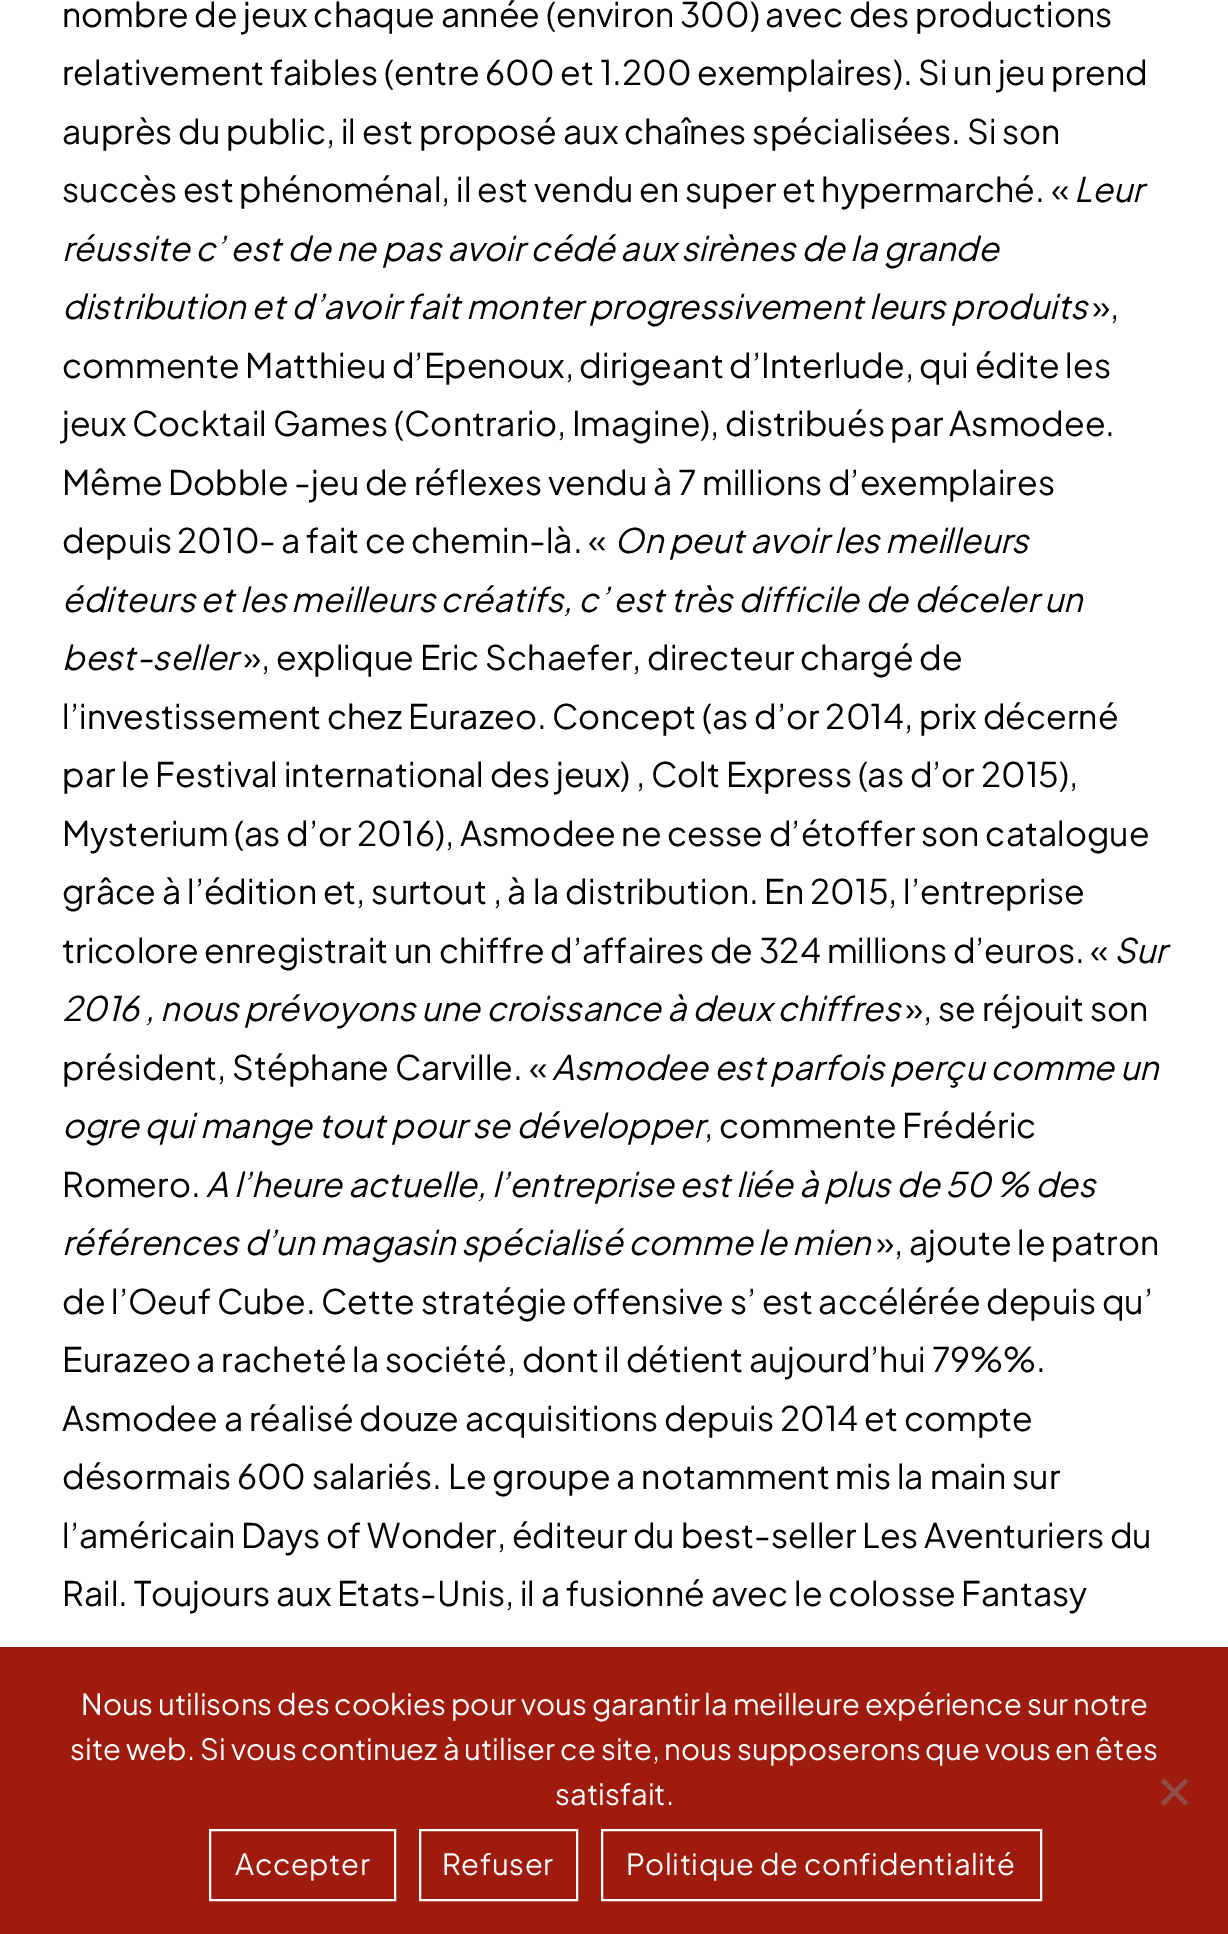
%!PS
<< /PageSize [1228 1934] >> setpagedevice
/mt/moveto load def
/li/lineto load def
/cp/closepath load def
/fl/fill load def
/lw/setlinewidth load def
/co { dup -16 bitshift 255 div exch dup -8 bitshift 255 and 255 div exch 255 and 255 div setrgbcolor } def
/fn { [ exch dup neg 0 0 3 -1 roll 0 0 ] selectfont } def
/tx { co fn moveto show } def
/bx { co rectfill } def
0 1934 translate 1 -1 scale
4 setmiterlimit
0 0 1228 1934 16#FFFFFF bx
0 1647 1228 287 16#9E1B0D bx
16#8F4E47 co
1185 1778.5 mt 1188 1782 li 1164 1805.5 li 1161 1802.5 li cp fl
1161 1782 mt 1164 1778.5 li 1188 1802.5 li 1185 1805.5 li cp fl
16#FFFFFF co
2 lw
210 1830 185 70 rectstroke
420 1830 157 70 rectstroke
602 1830 439 70 rectstroke
(nombre de jeux chaque année \(environ 300\) avec des productions) 62 27 /PlusJakartaSans-Regular 33.75 16#000000 tx
(relativement faibles \(entre 600 et 1.200 exemplaires\). Si un jeu prend) 62 85 /PlusJakartaSans-Regular 33.75 16#000000 tx
(auprès du public, il est proposé aux chaînes spécialisées. Si son) 62 144 /PlusJakartaSans-Regular 33.75 16#000000 tx
(succès est phénoménal, il est vendu en super et hypermarché. «) 62 202 /PlusJakartaSans-Regular 33.75 16#000000 tx
(Leur) 1074 202 /PlusJakartaSans-Italic 33.75 16#000000 tx
(réussite c’ est de ne pas avoir cédé aux sirènes de la grande) 62 261 /PlusJakartaSans-Italic 33.75 16#000000 tx
(distribution et d’avoir fait monter progressivement leurs produits) 62 319 /PlusJakartaSans-Italic 33.75 16#000000 tx
(»,) 1092 319 /PlusJakartaSans-Regular 33.75 16#000000 tx
(commente Matthieu d’Epenoux, dirigeant d’Interlude, qui édite les) 62 378 /PlusJakartaSans-Regular 33.75 16#000000 tx
(jeux Cocktail Games \(Contrario, Imagine\), distribués par Asmodee.) 62 436 /PlusJakartaSans-Regular 33.75 16#000000 tx
(Même Dobble -jeu de réflexes vendu à 7 millions d’exemplaires) 62 495 /PlusJakartaSans-Regular 33.75 16#000000 tx
62 553 mt -.5 0 32 (depuis 2010- a fait ce chemin-là. «) widthshow
(On peut avoir les meilleurs) 614 553 /PlusJakartaSans-Italic 33.75 16#000000 tx
(éditeurs et les meilleurs créatifs, c’ est très difficile de déceler un) 62 612 /PlusJakartaSans-Italic 33.75 16#000000 tx
(best-seller) 62 670 /PlusJakartaSans-Italic 33.75 16#000000 tx
(», explique Eric Schaefer, directeur chargé de) 243 670 /PlusJakartaSans-Regular 33.75 16#000000 tx
(l’investissement chez Eurazeo. Concept \(as d’or 2014, prix décerné) 62 729 /PlusJakartaSans-Regular 33.75 16#000000 tx
(par le Festival international des jeux\) , Colt Express \(as d’or 2015\),) 62 787 /PlusJakartaSans-Regular 33.75 16#000000 tx
(Mysterium \(as d’or 2016\), Asmodee ne cesse d’étoffer son catalogue) 62 846 /PlusJakartaSans-Regular 33.75 16#000000 tx
(grâce à l’édition et, surtout , à la distribution. En 2015, l’entreprise) 62 904 /PlusJakartaSans-Regular 33.75 16#000000 tx
(tricolore enregistrait un chiffre d’affaires de 324 millions d’euros. «) 62 963 /PlusJakartaSans-Regular 33.75 16#000000 tx
(Sur) 1114 963 /PlusJakartaSans-Italic 33.75 16#000000 tx
(2016 , nous prévoyons une croissance à deux chiffres) 62 1021 /PlusJakartaSans-Italic 33.75 16#000000 tx
(», se réjouit son) 905 1021 /PlusJakartaSans-Regular 33.75 16#000000 tx
(président, Stéphane Carville. «) 62 1080 /PlusJakartaSans-Regular 33.75 16#000000 tx
(Asmodee est parfois perçu comme un) 552 1080 /PlusJakartaSans-Italic 33.75 16#000000 tx
(ogre qui mange tout pour se développer) 62 1138 /PlusJakartaSans-Italic 33.75 16#000000 tx
(, commente Frédéric) 704 1138 /PlusJakartaSans-Regular 33.75 16#000000 tx
(Romero.) 62 1197 /PlusJakartaSans-Regular 33.75 16#000000 tx
(A l’heure actuelle, l’entreprise est liée à plus de 50 % des) 206 1197 /PlusJakartaSans-Italic 33.75 16#000000 tx
(références d’un magasin spécialisé comme le mien) 62 1255 /PlusJakartaSans-Italic 33.75 16#000000 tx
(», ajoute le patron) 876 1255 /PlusJakartaSans-Regular 33.75 16#000000 tx
(de l’Oeuf Cube. Cette stratégie offensive s’ est accélérée depuis qu’) 62 1314 /PlusJakartaSans-Regular 33.75 16#000000 tx
(Eurazeo a racheté la société, dont il détient aujourd’hui 79%%.) 62 1372 /PlusJakartaSans-Regular 33.75 16#000000 tx
(Asmodee a réalisé douze acquisitions depuis 2014 et compte) 62 1431 /PlusJakartaSans-Regular 33.75 16#000000 tx
(désormais 600 salariés. Le groupe a notamment mis la main sur) 62 1489 /PlusJakartaSans-Regular 33.75 16#000000 tx
(l’américain Days of Wonder, éditeur du best-seller Les Aventuriers du) 62 1548 /PlusJakartaSans-Regular 33.75 16#000000 tx
(Rail. Toujours aux Etats-Unis, il a fusionné avec le colosse Fantasy) 62 1606 /PlusJakartaSans-Regular 33.75 16#000000 tx
(Nous utilisons des cookies pour vous garantir la meilleure expérience sur notre) 81 1715 /PlusJakartaSans-Regular 29.25 16#FFFFFF tx
(site web. Si vous continuez à utiliser ce site, nous supposerons que vous en êtes) 70 1760 /PlusJakartaSans-Regular 29.25 16#FFFFFF tx
(satisfait.) 555 1805 /PlusJakartaSans-Regular 29.25 16#FFFFFF tx
235 1875 mt .55 0 (Accepter) ashow
442 1875 mt .55 0 (Refuser) ashow
626 1875 mt .55 0 (Politique de confidentialité) ashow
showpage
